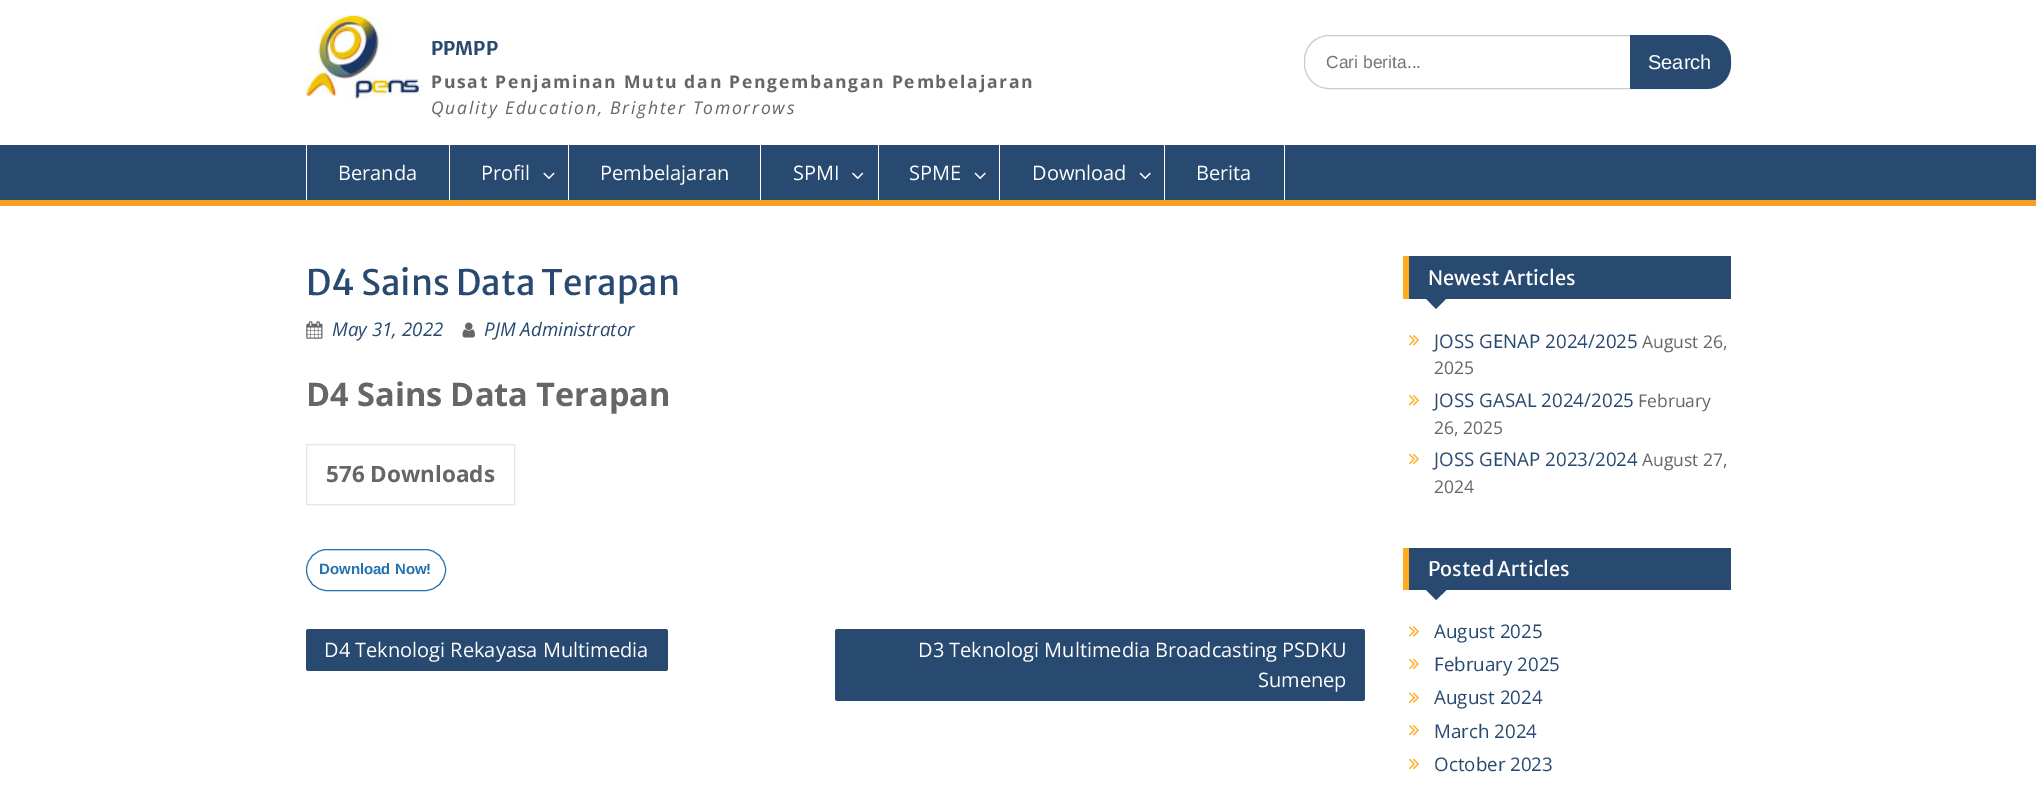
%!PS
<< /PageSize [2036 789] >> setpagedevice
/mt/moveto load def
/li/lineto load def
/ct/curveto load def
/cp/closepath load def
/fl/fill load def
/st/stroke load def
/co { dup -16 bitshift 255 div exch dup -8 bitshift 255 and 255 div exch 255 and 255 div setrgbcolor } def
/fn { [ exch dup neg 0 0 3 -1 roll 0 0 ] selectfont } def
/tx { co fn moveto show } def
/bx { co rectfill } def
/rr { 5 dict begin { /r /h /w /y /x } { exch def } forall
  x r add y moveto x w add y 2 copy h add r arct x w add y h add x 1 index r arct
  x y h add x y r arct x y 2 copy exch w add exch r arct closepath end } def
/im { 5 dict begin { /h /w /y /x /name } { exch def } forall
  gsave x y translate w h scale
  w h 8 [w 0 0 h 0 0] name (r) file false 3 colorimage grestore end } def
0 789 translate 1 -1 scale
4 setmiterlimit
0 0 2036 789 16#FFFFFF bx
(media/1.raw) 306 15 113 85 im
16#CCCCCC co
1304.5 35.5 426 53 24.5 rr st
16#294A70 co
1630 35 mt 1706 35 li 1720 35 1731 46 1731 60 ct 1731 64 li 1731 78 1720 89 1706 89 ct 1630 89 li cp fl
0 145 2036 55 16#294A70 bx
0 200 2036 6 16#F4A024 bx
449 145 1 55 16#FFFFFF bx
306 145 1 55 16#FFFFFF bx
568 145 1 55 16#FFFFFF bx
(media/2.raw) 543 172 12 8 im
760 145 1 55 16#FFFFFF bx
878 145 1 55 16#FFFFFF bx
(media/3.raw) 852 172 12 8 im
999 145 1 55 16#FFFFFF bx
(media/4.raw) 974 172 12 8 im
1164 145 1 55 16#FFFFFF bx
(media/4.raw) 1139 172 12 8 im
1284 145 1 55 16#FFFFFF bx
(media/5.raw) 306 321 17 18 im
(media/6.raw) 462 322 13 16 im
16#E8E4E3 co
306.5 444.5 208 60 rectstroke
16#2271B1 co
306.5 549.5 139 41 20.5 rr st
16#294A70 co
306 629 362 42 2.5 rr fl
835 629 530 72 2.5 rr fl
1409 256 322 43 16#294A70 bx
1403 256 6 43 16#FFAB1F bx
16#294A70 co
1425 297.5 mt 1447.5 297.5 li 1436 309 li cp fl
(media/7.raw) 1408 335 11 11 im
(media/7.raw) 1408 395 11 11 im
(media/8.raw) 1408 453 11 12 im
1409 548 322 42 16#294A70 bx
1403 548 6 42 16#FFAB1F bx
16#294A70 co
1425 589 mt 1447.5 589 li 1436 600 li cp fl
(media/9.raw) 1408 626 11 11 im
(media/8.raw) 1408 658 11 12 im
(media/10.raw) 1408 692 11 11 im
(media/7.raw) 1408 725 11 11 im
(media/8.raw) 1408 758 11 12 im
(PPMPP) 431 55 /MerriweatherSans-Bold 18.75 16#294A70 tx
/OpenSans-Bold 17.5 fn
16#666666 co
431 88 mt 1.75 0 (Pusat Penjaminan Mutu dan Pengembangan Pembelajaran) ashow
/OpenSans-Italic 17.5 fn
431 114 mt 1.75 0 (Quality Education, Brighter Tomorrows) ashow
(Cari berita...) 1326 68 /LiberationSans-Regular 17.5 16#757575 tx
(Search) 1648 69 /LiberationSans-Regular 20 16#FFFFFF tx
(Beranda) 338 180 /OpenSans-Regular 20 16#FFFFFF tx
(Profil) 481 180 /OpenSans-Regular 20 16#FFFFFF tx
(Pembelajaran) 600 180 /OpenSans-Regular 20 16#FFFFFF tx
(SPMI) 793 180 /OpenSans-Regular 20 16#FFFFFF tx
(SPME) 909 180 /OpenSans-Regular 20 16#FFFFFF tx
(Download) 1032 180 /OpenSans-Regular 20 16#FFFFFF tx
(Berita) 1196 180 /OpenSans-Regular 20 16#FFFFFF tx
(D4 Sains Data Terapan) 306 295 /MerriweatherSans-Regular 35 16#294A70 tx
(May 31, 2022) 332 336 /OpenSans-Italic 18.75 16#294A70 tx
(PJM Administrator) 484 336 /OpenSans-Italic 18.75 16#294A70 tx
(D4 Sains Data Terapan) 306 406 /OpenSans-Bold 32.5 16#666666 tx
(576 Downloads) 326 482 /OpenSans-Bold 22.5 16#666666 tx
(Download Now!) 319 574 /LiberationSans-Bold 15 16#2271B1 tx
(D4 Teknologi Rekayasa Multimedia) 324 657 /OpenSans-Regular 20 16#FFFFFF tx
(D3 Teknologi Multimedia Broadcasting PSDKU) 918 657 /OpenSans-Regular 20 16#FFFFFF tx
(Sumenep) 1258 687 /OpenSans-Regular 20 16#FFFFFF tx
(Newest Articles) 1428 285 /MerriweatherSans-Regular 20 16#FFFFFF tx
(JOSS GENAP 2024/2025) 1434 348 /OpenSans-Regular 18.75 16#294A70 tx
(August 26,) 1642 348 /OpenSans-Regular 17.5 16#666666 tx
(2025) 1434 374 /OpenSans-Regular 17.5 16#666666 tx
(JOSS GASAL 2024/2025) 1434 407 /OpenSans-Regular 18.75 16#294A70 tx
(February) 1638 407 /OpenSans-Regular 17.5 16#666666 tx
(26, 2025) 1434 434 /OpenSans-Regular 17.5 16#666666 tx
(JOSS GENAP 2023/2024) 1434 466 /OpenSans-Regular 18.75 16#294A70 tx
(August 27,) 1642 466 /OpenSans-Regular 17.5 16#666666 tx
(2024) 1434 493 /OpenSans-Regular 17.5 16#666666 tx
(Posted Articles) 1428 576 /MerriweatherSans-Regular 20 16#FFFFFF tx
(August 2025) 1434 638 /OpenSans-Regular 18.75 16#294A70 tx
(February 2025) 1434 671 /OpenSans-Regular 18.75 16#294A70 tx
(August 2024) 1434 704 /OpenSans-Regular 18.75 16#294A70 tx
(March 2024) 1434 738 /OpenSans-Regular 18.75 16#294A70 tx
(October 2023) 1434 771 /OpenSans-Regular 18.75 16#294A70 tx
showpage
